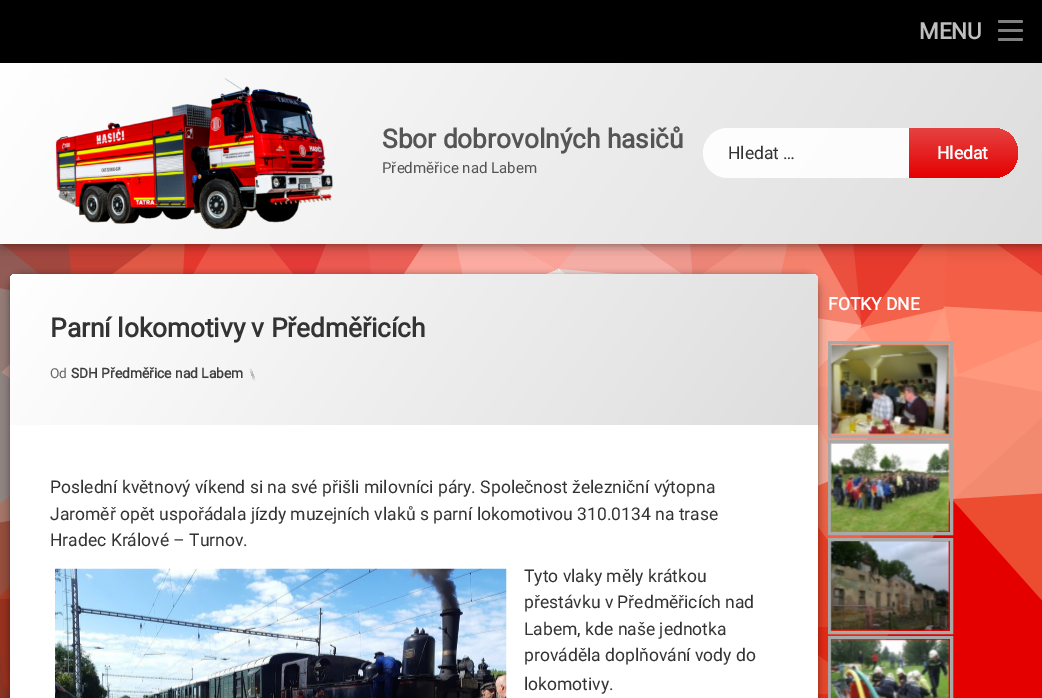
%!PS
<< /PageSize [1042 698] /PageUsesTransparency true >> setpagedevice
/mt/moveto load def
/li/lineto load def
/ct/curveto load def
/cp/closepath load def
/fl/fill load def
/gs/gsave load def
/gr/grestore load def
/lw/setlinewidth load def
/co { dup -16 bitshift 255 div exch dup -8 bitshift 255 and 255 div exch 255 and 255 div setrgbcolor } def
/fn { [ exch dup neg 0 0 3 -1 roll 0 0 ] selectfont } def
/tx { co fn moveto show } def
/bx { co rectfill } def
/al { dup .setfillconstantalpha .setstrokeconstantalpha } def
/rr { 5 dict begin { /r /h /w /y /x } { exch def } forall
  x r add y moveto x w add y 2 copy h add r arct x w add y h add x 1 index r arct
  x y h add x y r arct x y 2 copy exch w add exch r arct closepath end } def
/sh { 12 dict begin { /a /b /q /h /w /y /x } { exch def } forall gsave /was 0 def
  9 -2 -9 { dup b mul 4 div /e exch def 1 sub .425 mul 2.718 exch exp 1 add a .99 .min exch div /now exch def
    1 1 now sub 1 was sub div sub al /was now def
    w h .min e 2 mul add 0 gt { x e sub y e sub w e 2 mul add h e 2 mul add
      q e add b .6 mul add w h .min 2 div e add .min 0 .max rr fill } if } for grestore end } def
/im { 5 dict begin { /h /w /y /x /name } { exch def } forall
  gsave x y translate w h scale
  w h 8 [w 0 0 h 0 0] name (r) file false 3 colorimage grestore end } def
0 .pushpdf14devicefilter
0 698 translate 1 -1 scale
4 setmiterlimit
0 0 1042 698 16#FFFFFF bx
(media/7.raw) 0 244 1042 454 im
16#000000 co
3 65 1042 181 0 4.5 .3 sh
0 63 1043 181 0 9.5 .2 sh
0 0 1042 63 16#000000 bx
16#808080 co
998 20 25 3 1.5 rr fl
998 29 25 3 1.5 rr fl
998 38 25 3 1.5 rr fl
gs 0 63 mt 1042 63 li 1042 244 li 0 244 li cp clip newpath
<< /ShadingType 2 /ColorSpace /DeviceRGB /Coords [129 -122 914 428] /Extend [true true] /Function << /FunctionType 2 /Domain [0 1] /C0 [1 1 1] /C1 [.867 .867 .867] /N 1 >> >> shfill gr
(media/1.raw) 55 78 279 152 im
0.9 al
16#FFFFFF co
703 128 312 50 25 rr fl
1 al
gs 909 128 mt 993 128 li 1007 128 1018 139 1018 153 ct 1018 167 1007 178 993 178 ct 909 178 li cp clip newpath
<< /ShadingType 2 /ColorSpace /DeviceRGB /Coords [963 128 963 178] /Extend [true true] /Function << /FunctionType 2 /Domain [0 1] /C0 [.898 .259 .259] /C1 [.898 0 0] /N 1 >> >> shfill gr
16#A9A9A9 co
3 lw
829.5 342.5 122 94 rectstroke
(media/2.raw) 830 344 120 91 im
829.5 441.5 122 92 rectstroke
(media/3.raw) 830 443 120 89 im
829.5 539.5 122 93 rectstroke
(media/4.raw) 830 541 120 90 im
829.5 637.5 122 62 rectstroke
(media/5.raw) 830 639 120 59 im
16#000000 co
10 274 808 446 13 3 .25 sh
10 280 808 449 13 6 .25 sh
16#FFFFFF co
23 274 mt 805 274 li 812 274 818 280 818 287 ct 818 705 li 818 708.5 815.5 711 812 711 ct 16 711 li 12.5 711 10 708.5 10 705 ct 10 287 li 10 280 16 274 23 274 ct cp fl
gs 16 274 mt 812 274 li 815.5 274 818 276.5 818 280 ct 818 425 li 10 425 li 10 280 li 10 276.5 12.5 274 16 274 ct cp clip newpath
<< /ShadingType 2 /ColorSpace /DeviceRGB /Coords [107 135 720 564] /Extend [true true] /Function << /FunctionType 2 /Domain [0 1] /C0 [1 1 1] /C1 [.867 .867 .867] /N 1 >> >> shfill gr
gs 249.5 368 mt 250.5 367.5 li 255.5 380.5 li 254 381 li cp clip newpath
<< /ShadingType 2 /ColorSpace /DeviceRGB /Coords [250 368 255 381] /Extend [true true] /Function << /FunctionType 3 /Domain [0 1] /Functions [<< /FunctionType 2 /Domain [0 1] /C0 [.953 .953 .953] /C1 [.694 .694 .694] /N 1 >> << /FunctionType 2 /Domain [0 1] /C0 [.694 .694 .694] /C1 [.953 .953 .953] /N 1 >>] /Bounds [.5] /Encode [0 1 0 1] >> >> shfill gr
(media/6.raw) 55 568 452 130 im
(MENU) 919 39 /Roboto-Bold 22.5 16#BFBFBF tx
(Sbor dobrovolných hasičů) 382 148 /Roboto-Bold 26.25 16#555555 tx
(Předměřice nad Labem) 382 173 /Roboto-Regular 15 16#555555 tx
(Hledat …) 728 159 /Roboto-Regular 17.5 16#333333 tx
(Hledat) 937 159 /Roboto-Bold 17.5 16#FFFFFF tx
(FOTKY DNE) 828 310 /Roboto-Bold 17.5 16#FFFFFF tx
(Parní lokomotivy v Předměřicích) 50 337 /Roboto-Bold 26.25 16#333333 tx
(Od) 50 378 /Roboto-Regular 13.75 16#656565 tx
(SDH Předměřice nad Labem) 71 378 /Roboto-Bold 13.75 16#3E3E3E tx
(Poslední květnový víkend si na své přišli milovníci páry. Společnost železniční výtopna) 50 493 /Roboto-Regular 17.5 16#333333 tx
(Jaroměř opět uspořádala jízdy muzejních vlaků s parní lokomotivou 310.0134 na trase) 50 520 /Roboto-Regular 17.5 16#333333 tx
(Hradec Králové – Turnov.) 50 546 /Roboto-Regular 17.5 16#333333 tx
(Tyto vlaky měly krátkou) 524 582 /Roboto-Regular 17.5 16#333333 tx
(přestávku v Předměřicích nad) 524 608 /Roboto-Regular 17.5 16#333333 tx
(Labem, kde naše jednotka) 524 635 /Roboto-Regular 17.5 16#333333 tx
(prováděla doplňování vody do) 524 661 /Roboto-Regular 17.5 16#333333 tx
(lokomotivy.) 524 690 /Roboto-Regular 17.5 16#333333 tx
.poppdf14devicefilter showpage
